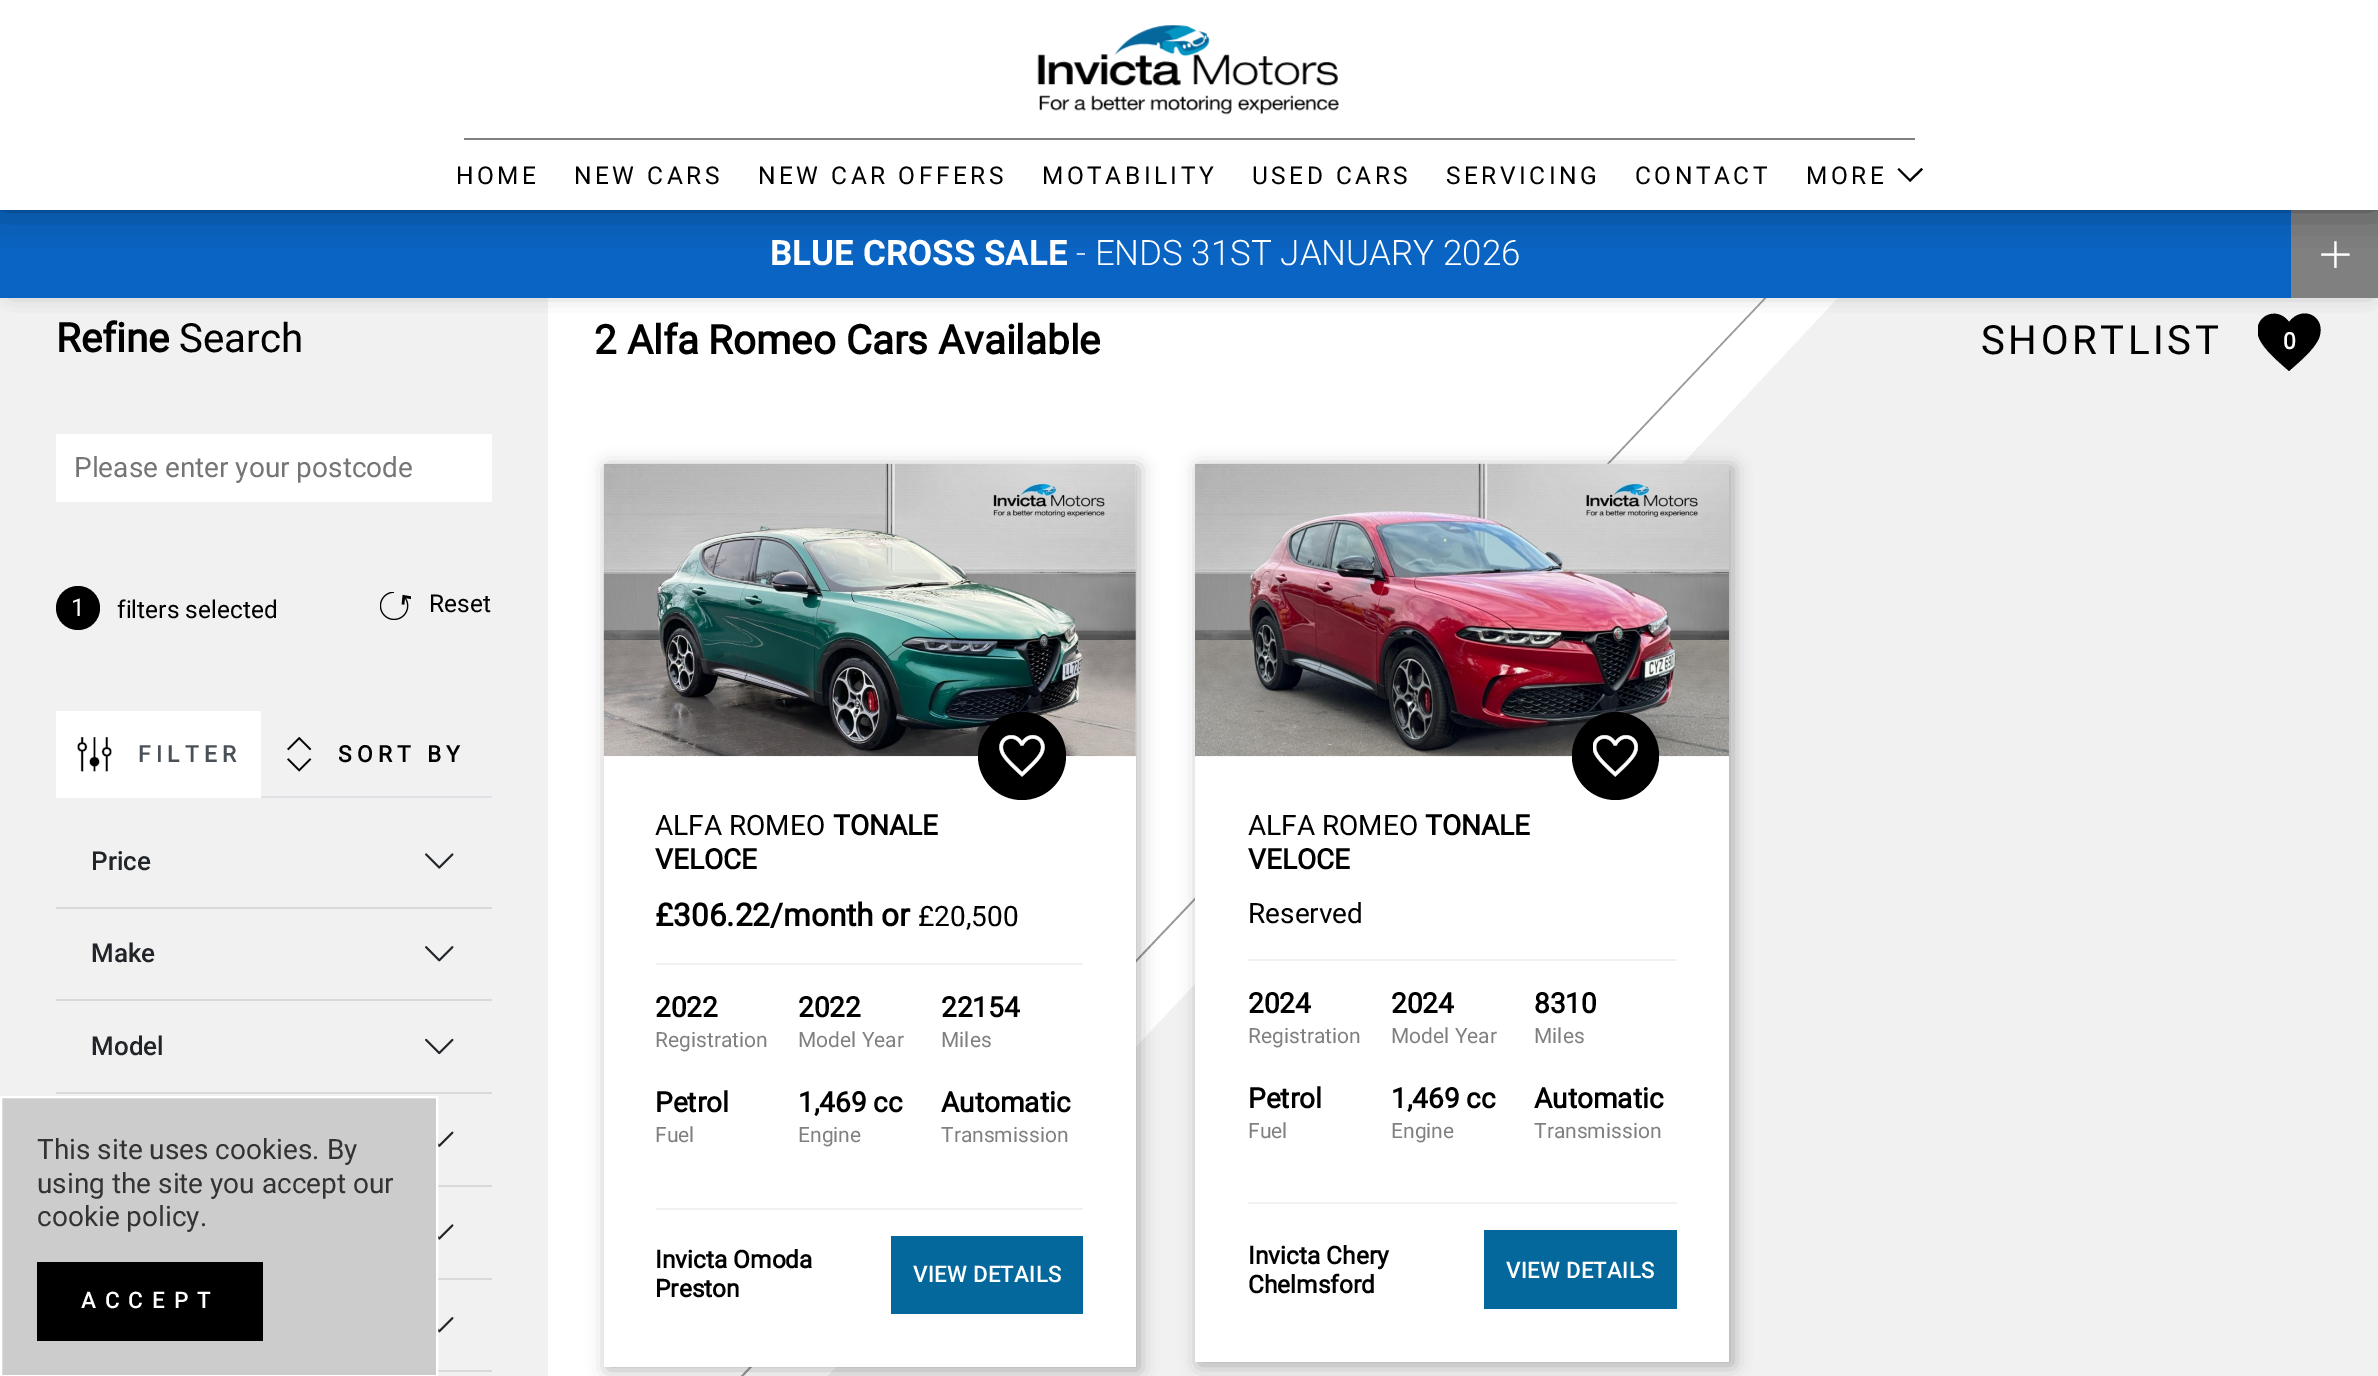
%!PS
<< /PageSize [2378 1376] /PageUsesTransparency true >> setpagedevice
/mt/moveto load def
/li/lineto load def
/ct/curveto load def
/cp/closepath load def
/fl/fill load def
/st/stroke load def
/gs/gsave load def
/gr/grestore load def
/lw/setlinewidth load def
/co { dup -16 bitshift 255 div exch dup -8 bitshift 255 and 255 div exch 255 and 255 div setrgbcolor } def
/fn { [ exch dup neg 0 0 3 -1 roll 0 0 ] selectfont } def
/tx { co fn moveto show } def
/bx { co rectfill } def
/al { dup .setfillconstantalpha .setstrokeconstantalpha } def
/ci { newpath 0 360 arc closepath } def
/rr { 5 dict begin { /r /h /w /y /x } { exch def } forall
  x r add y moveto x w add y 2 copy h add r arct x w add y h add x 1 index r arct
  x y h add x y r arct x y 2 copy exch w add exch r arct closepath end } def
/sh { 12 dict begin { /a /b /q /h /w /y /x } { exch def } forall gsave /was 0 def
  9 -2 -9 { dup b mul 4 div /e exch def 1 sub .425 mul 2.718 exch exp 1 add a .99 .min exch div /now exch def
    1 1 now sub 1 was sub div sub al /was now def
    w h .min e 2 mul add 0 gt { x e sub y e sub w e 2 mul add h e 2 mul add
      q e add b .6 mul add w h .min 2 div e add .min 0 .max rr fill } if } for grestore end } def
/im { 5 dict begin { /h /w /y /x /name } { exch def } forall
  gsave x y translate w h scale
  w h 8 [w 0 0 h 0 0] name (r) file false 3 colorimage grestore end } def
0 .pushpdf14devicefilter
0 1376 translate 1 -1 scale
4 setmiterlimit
0 0 2378 1376 16#F1F1F1 bx
16#FFFFFF co
1920 210 mt 548 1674 li 548 210 li cp fl
16#999999 co
1848 212 mt -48 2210 li -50 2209 li 1847 211 li cp fl
gs
2258 313 63 58 rectclip
16#000000 co
2289 371 mt 2279 362 2264 350 2259 338 ct 2251 318 2276 304 2289 322 ct 2303 304 2327 317 2319 338 ct 2314 350 2299 362 2289 371 ct cp fl
gr
16#808080 co
12 222 2358 67 0 10.5 1 sh
0 210 2291 88 16#0A64C3 bx
2291 210 87 88 16#808080 bx
(media/2.raw) 2321 241 29 27 im
16#000000 co
0 -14 2378 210 0 23 .75 sh
0 0 2378 210 16#FFFFFF bx
(media/1.raw) 1037 25 302 90 im
464 138 1451 2 16#808080 bx
16#000000 co
1899 168 mt 1897.5 169.5 li 1910 182 li 1923 169.5 li 1921.5 168 li 1910 179 li cp fl
56 434 436 68 16#FFFFFF bx
16#000000 co
78 608 22 ci fl
(media/3.raw) 380 592 31 28 im
261 796 231 2 16#DEE2E6 bx
56 711 205 87 16#FFFFFF bx
(media/4.raw) 77 737 35 35 im
(media/5.raw) 287 737 25 35 im
56 907 436 2 16#D9D9D9 bx
(media/6.raw) 425 853 29 16 im
56 999 436 2 16#D9D9D9 bx
(media/7.raw) 425 946 29 16 im
56 1092 436 2 16#D9D9D9 bx
(media/8.raw) 425 1038 29 17 im
438 1185 54 2 16#D9D9D9 bx
(media/9.raw) 438 1131 16 16 im
438 1278 54 2 16#D9D9D9 bx
(media/10.raw) 438 1224 16 16 im
438 1370 54 2 16#D9D9D9 bx
(media/11.raw) 438 1317 16 16 im
16#000000 co
607 467 532 903 0 9 .3 sh
604 756 532 611 16#FFFFFF bx
(media/12.raw) 603 463 533 294 im
16#000000 co
1022 756 44 ci fl
(media/13.raw) 999 735 46 42 im
656 963 427 2 16#F1F1F1 bx
656 1208 427 2 16#F1F1F1 bx
891 1236 192 78 16#05689D bx
16#000000 co
1199 467 534 898 0 9 .3 sh
1195 756 534 606 16#FFFFFF bx
(media/14.raw) 1195 463 534 294 im
16#000000 co
1572 712 87 88 43.5 rr fl
(media/15.raw) 1593 735 45 42 im
1248 959 429 2 16#F1F1F1 bx
1248 1202 429 2 16#F1F1F1 bx
1484 1230 193 79 16#05689D bx
16#CCCCCC co
1 1097 mt 437 1097 li 437 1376 li 1 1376 li cp gs fl gr
16#FFFFFF co
2 lw
st
37 1262 226 79 16#000000 bx
/Roboto-Regular 24.5 fn
456 184 mt 3.5 0 (HOME) ashow
574 184 mt 3.5 0 (NEW CARS) ashow
758 184 mt 3.5 0 (NEW CAR OFFERS) ashow
1042 184 mt 3.5 0 (MOTABILITY) ashow
1252 184 mt 3.5 0 (USED CARS) ashow
1446 184 mt 3.5 0 (SERVICING) ashow
1635 184 mt 3.5 0 (CONTACT) ashow
1806 184 mt 3.5 0 (MORE) ashow
(BLUE CROSS SALE) 770 265 /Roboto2-Bold 35 16#FFFFFF tx
(- ENDS 31ST JANUARY 2026) 1076 265 /Roboto-Light 35 16#FFFFFF tx
(Refine) 56 352 /Roboto-Bold 40.25 16#000000 tx
(Search) 179 352 /Roboto-Regular 40.25 16#000000 tx
(Please enter your postcode) 74 477 /Roboto-Regular 28 16#757575 tx
(1) 71 616 /Roboto-Regular 24.5 16#FFFFFF tx
(filters selected) 117 618 /Roboto-Regular 24.5 16#000000 tx
(Reset) 429 612 /Roboto-Regular 24.5 16#000000 tx
/Roboto-Bold 22.75 fn
16#495057 co
138 762 mt 5.25 0 (FILTER) ashow
16#000000 co
338 762 mt 5.25 0 (SORT BY) ashow
(Price) 91 870 /Roboto-Medium 26 16#212529 tx
(Make) 91 962 /Roboto-Medium 26 16#212529 tx
(Model) 91 1055 /Roboto-Medium 26 16#212529 tx
(2 Alfa Romeo Cars Available) 594 354 /Roboto-Bold 40.25 16#000000 tx
/Roboto-Regular 40.25 fn
1981 354 mt 3.5 0 (SHORTLIST) ashow
(0) 2283 349 /Roboto-Bold 22.75 16#FFFFFF tx
(ALFA ROMEO) 655 835 /Roboto-Regular 28 16#000000 tx
(TONALE) 833 835 /Roboto-Bold 28 16#000000 tx
(VELOCE) 655 869 /Roboto-Bold 28 16#000000 tx
(£306.22/month or) 655 926 /Roboto-Bold 31.5 16#000000 tx
(£20,500) 918 926 /Roboto-Regular 28 16#000000 tx
(2022) 655 1017 /Roboto-Bold 28 16#000000 tx
(Registration) 655 1047 /Roboto-Regular 21 16#808080 tx
(2022) 798 1017 /Roboto-Bold 28 16#000000 tx
(Model Year) 798 1047 /Roboto-Regular 21 16#808080 tx
(22154) 941 1017 /Roboto-Bold 28 16#000000 tx
(Miles) 941 1047 /Roboto-Regular 21 16#808080 tx
(Petrol) 655 1112 /Roboto-Bold 28 16#000000 tx
(Fuel) 655 1142 /Roboto-Regular 21 16#808080 tx
(1,469 cc) 798 1112 /Roboto-Bold 28 16#000000 tx
(Engine) 798 1142 /Roboto-Regular 21 16#808080 tx
(Automatic) 941 1112 /Roboto-Bold 28 16#000000 tx
(Transmission) 941 1142 /Roboto-Regular 21 16#808080 tx
(Invicta Omoda) 655 1268 /Roboto-Bold 24.5 16#000000 tx
(Preston) 655 1297 /Roboto-Bold 24.5 16#000000 tx
(VIEW DETAILS) 913 1282 /Roboto-Medium 22.75 16#FFFFFF tx
(ALFA ROMEO) 1248 835 /Roboto-Regular 28 16#000000 tx
(TONALE) 1425 835 /Roboto-Bold 28 16#000000 tx
(VELOCE) 1248 869 /Roboto-Bold 28 16#000000 tx
(Reserved) 1248 923 /Roboto-Regular 28 16#000000 tx
(2024) 1248 1013 /Roboto-Bold 28 16#000000 tx
(Registration) 1248 1043 /Roboto-Regular 21 16#808080 tx
(2024) 1391 1013 /Roboto-Bold 28 16#000000 tx
(Model Year) 1391 1043 /Roboto-Regular 21 16#808080 tx
(8310) 1534 1013 /Roboto-Bold 28 16#000000 tx
(Miles) 1534 1043 /Roboto-Regular 21 16#808080 tx
(Petrol) 1248 1108 /Roboto-Bold 28 16#000000 tx
(Fuel) 1248 1138 /Roboto-Regular 21 16#808080 tx
(1,469 cc) 1391 1108 /Roboto-Bold 28 16#000000 tx
(Engine) 1391 1138 /Roboto-Regular 21 16#808080 tx
(Automatic) 1534 1108 /Roboto-Bold 28 16#000000 tx
(Transmission) 1534 1138 /Roboto-Regular 21 16#808080 tx
(Invicta Chery) 1248 1264 /Roboto-Bold 24.5 16#000000 tx
(Chelmsford) 1248 1293 /Roboto-Bold 24.5 16#000000 tx
(VIEW DETAILS) 1506 1278 /Roboto-Medium 22.75 16#FFFFFF tx
(This site uses cookies. By) 37 1159 /Roboto-Regular 28 16#333333 tx
(using the site you accept our) 37 1193 /Roboto-Regular 28 16#333333 tx
(cookie policy.) 37 1226 /Roboto-Regular 28 16#333333 tx
/Roboto-Medium 22.75 fn
16#FFFFFF co
81 1308 mt 8.75 0 (ACCEPT) ashow
.poppdf14devicefilter showpage
